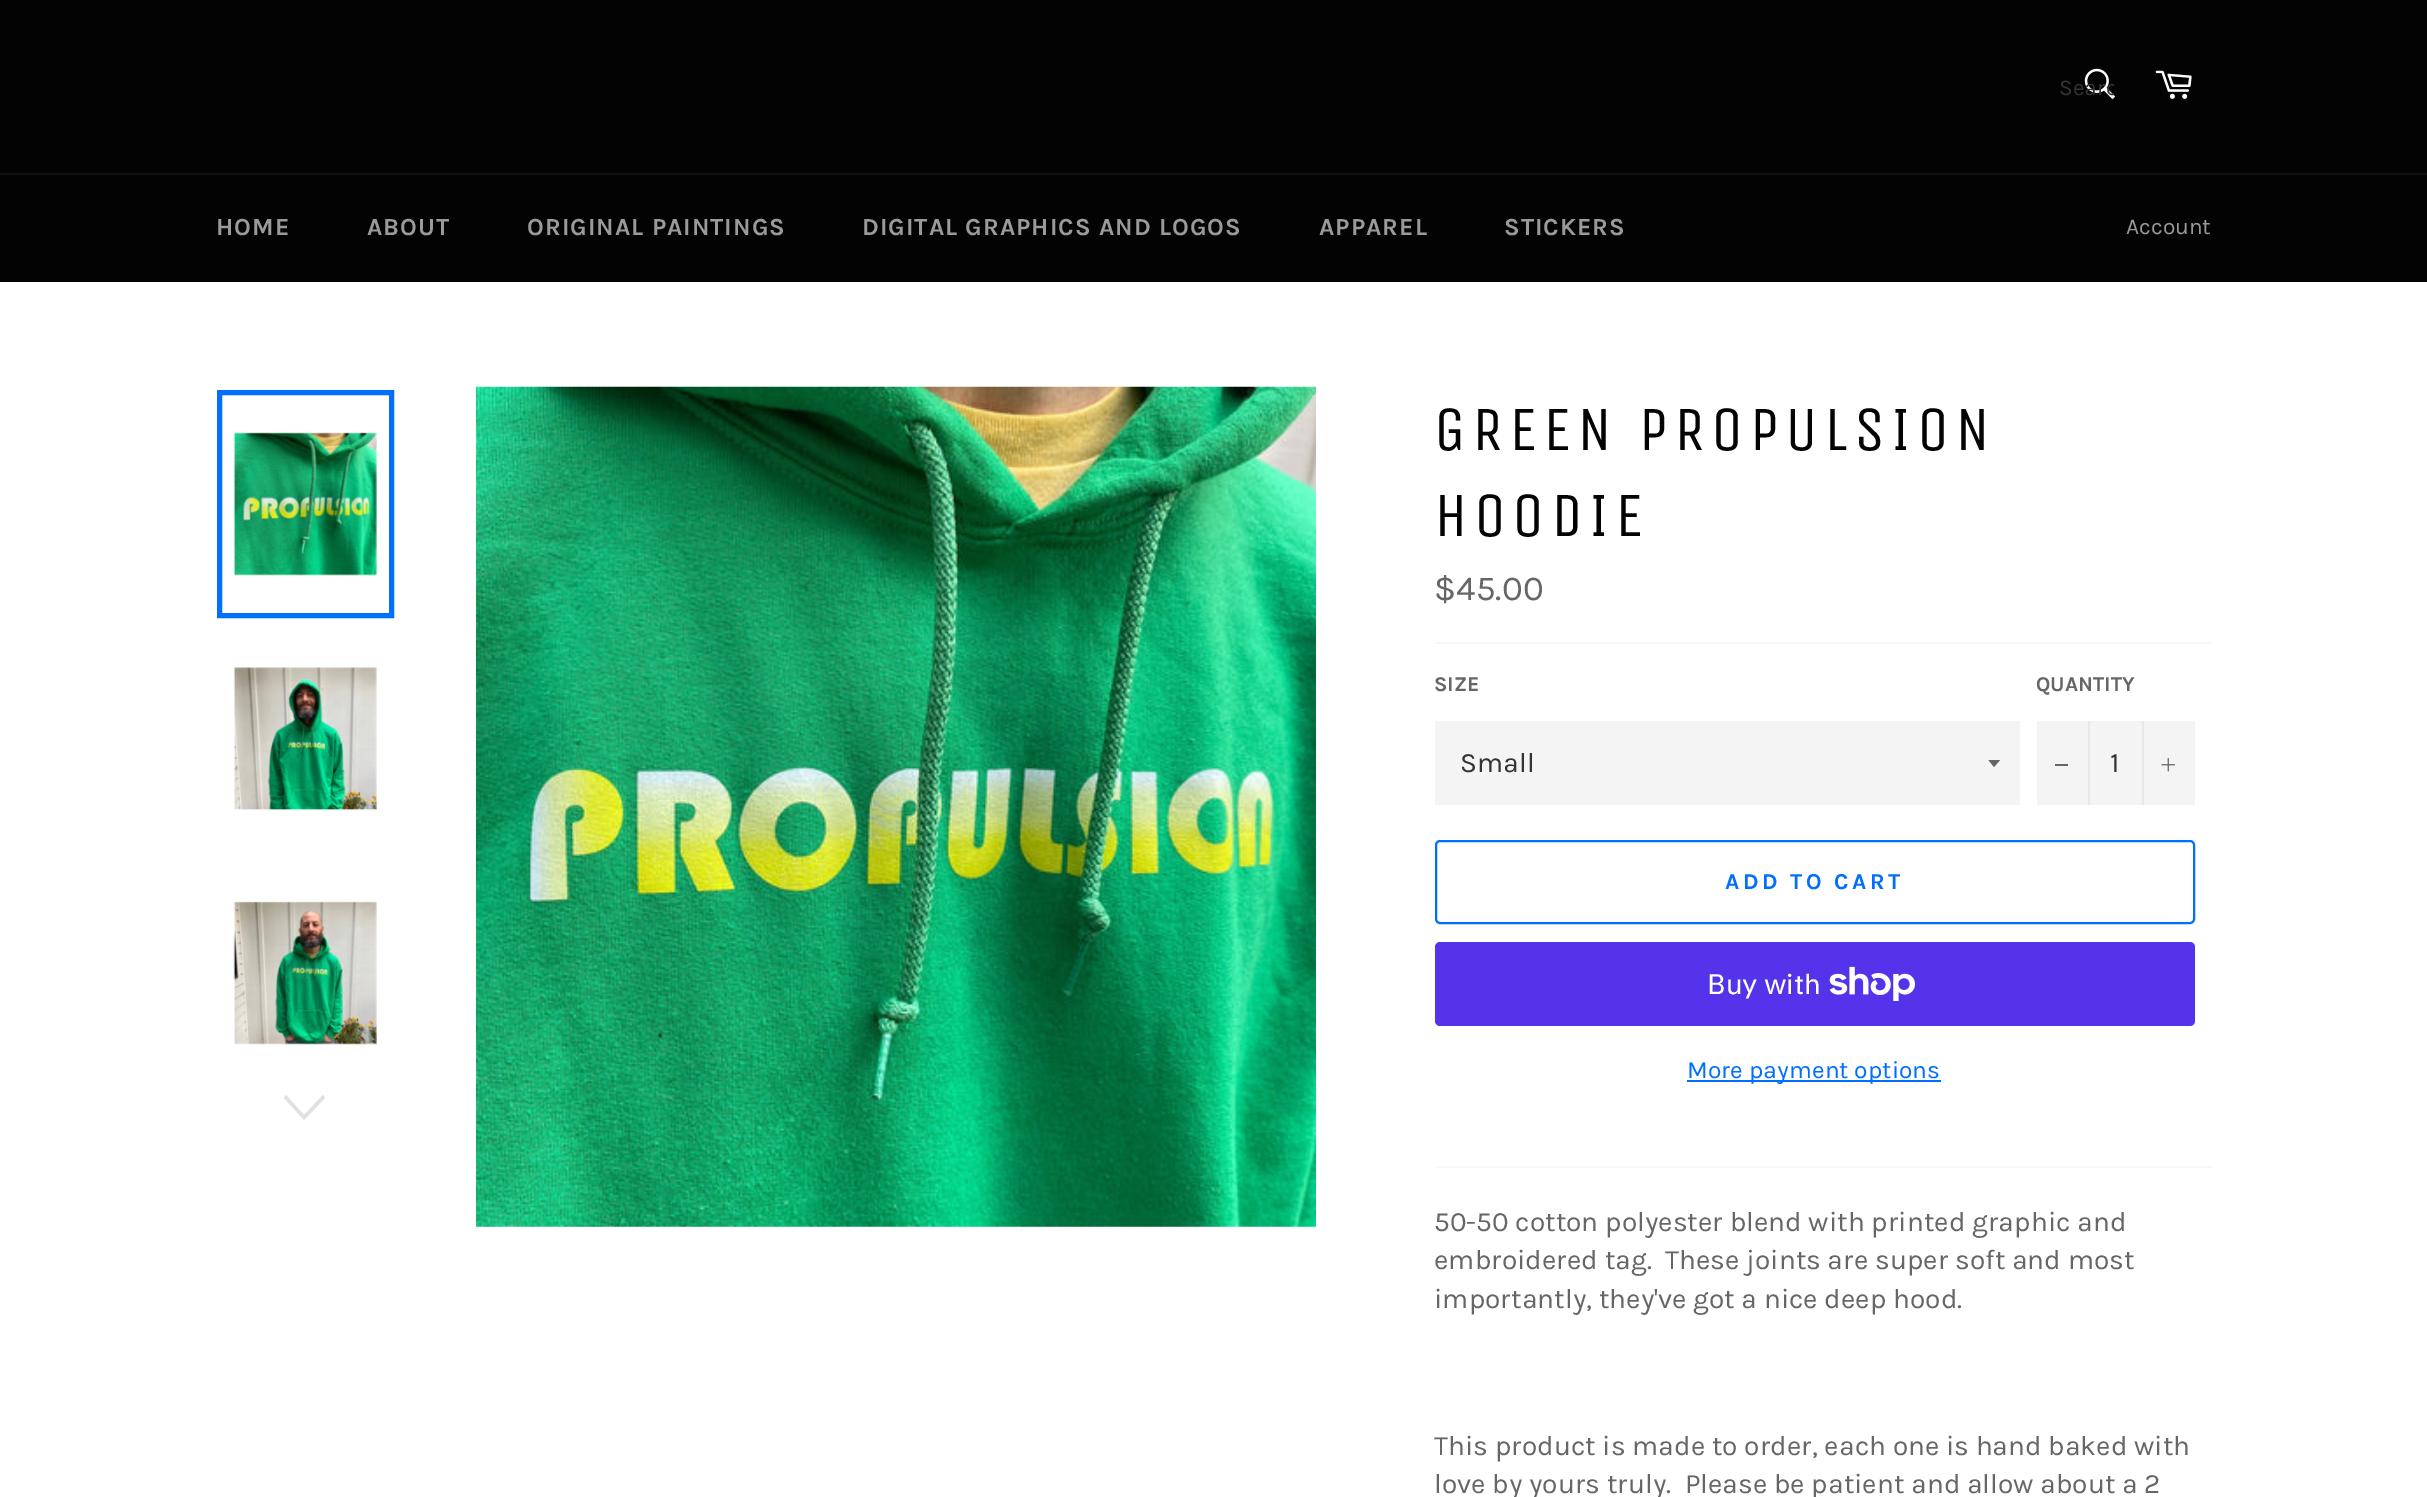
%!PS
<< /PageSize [2427 1497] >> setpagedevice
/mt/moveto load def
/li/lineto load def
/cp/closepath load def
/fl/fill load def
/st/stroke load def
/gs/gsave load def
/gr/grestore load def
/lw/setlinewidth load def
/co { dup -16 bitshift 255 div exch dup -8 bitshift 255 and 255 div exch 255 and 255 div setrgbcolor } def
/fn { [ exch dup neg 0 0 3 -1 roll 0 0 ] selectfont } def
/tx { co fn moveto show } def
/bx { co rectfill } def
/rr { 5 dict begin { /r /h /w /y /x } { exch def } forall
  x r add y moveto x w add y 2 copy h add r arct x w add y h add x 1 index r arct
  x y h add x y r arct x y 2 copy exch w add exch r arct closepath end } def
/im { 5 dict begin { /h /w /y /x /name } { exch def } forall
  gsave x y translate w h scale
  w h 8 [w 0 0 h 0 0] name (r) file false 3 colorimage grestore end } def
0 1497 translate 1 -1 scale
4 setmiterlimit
0 0 2427 1497 16#030303 bx
(media/1.raw) 2084 68 32 32 im
(media/2.raw) 2155 70 37 29 im
0 173 2427 2 16#101010 bx
0 282 2427 1215 16#FFFFFF bx
(media/3.raw) 233 432 144 144 im
16#006EFF co
5 lw
219.5 392.5 172 223 rectstroke
(media/4.raw) 233 667 144 144 im
(media/5.raw) 233 901 144 144 im
16#E0E0E0 co
323 1095 mt 325 1098 li 304 1120 li 284 1098 li 286 1095 li 304 1115 li cp fl
(media/6.raw) 476 386 840 841 im
1435 642 777 2 16#F7F7F7 bx
1435 721 585 84 16#F4F4F4 bx
gs
1988 760 14 8 rectclip
16#666666 co
1988 759.5 mt 1994 767 li 2000.5 759.5 li cp fl
gr
2037 721 158 84 16#F4F4F4 bx
2088 721 2 84 16#E7E7E7 bx
2055 764 13 2 16#666666 bx
2142 721 2 84 16#E7E7E7 bx
(media/7.raw) 2161 758 14 14 im
16#006EFF co
2 lw
1436 841 758 82 4 rr st
16#5433EB co
1435 942 760 84 5 rr fl
(media/8.raw) 1829 966 86 35 im
1687 1080 254 2 16#006EFF bx
1435 1166 777 2 16#F7F7F7 bx
gs
2058 74 56 26 rectclip
(Searc) 2059 95 /Karla-Regular 22.75 16#333333 tx
gr
/Karla-Bold 24.5 fn
16#9A9A9A co
216 235 mt 1.05 0 (HOME) ashow
367 235 mt 1.05 0 (ABOUT) ashow
527 235 mt 1.05 0 (ORIGINAL PAINTINGS) ashow
862 235 mt 1.05 0 (DIGITAL GRAPHICS AND LOGOS) ashow
1319 235 mt 1.05 0 (APPAREL) ashow
1504 235 mt 1.05 0 (STICKERS) ashow
(Account) 2126 234 /Karla-Regular 22.75 16#9A9A9A tx
/UnicaOne-Regular 63 fn
16#030303 co
1434 450 mt 6.25 0 (GREEN PROPULSION) ashow
1434 536 mt 6.25 0 (HOODIE) ashow
($45.00) 1434 600 /Karla-Regular 35 16#666666 tx
(SIZE) 1434 691 /Karla-Bold 21 16#666666 tx
(Small) 1460 772 /Karla-Regular 28 16#333333 tx
(QUANTITY) 2036 691 /Karla-Bold 21 16#666666 tx
(1) 2110 772 /Karla-Regular 28 16#333333 tx
/Karla-Bold 22.75 fn
16#006EFF co
1725 889 mt 3.5 0 (ADD TO CART) ashow
(Buy with) 1707 994 /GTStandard-Regular 28 16#FFFFFF tx
(More payment options) 1687 1078 /Karla-Regular 24.5 16#006EFF tx
(50-50 cotton polyester blend with printed graphic and) 1434 1231 /Karla-Regular 28 16#666666 tx
(embroidered tag.  These joints are super soft and most) 1434 1269 /Karla-Regular 28 16#666666 tx
(importantly, they've got a nice deep hood.) 1434 1308 /Karla-Regular 28 16#666666 tx
(This product is made to order, each one is hand baked with) 1434 1455 /Karla-Regular 28 16#666666 tx
(love by yours truly.  Please be patient and allow about a 2) 1434 1493 /Karla-Regular 28 16#666666 tx
showpage
